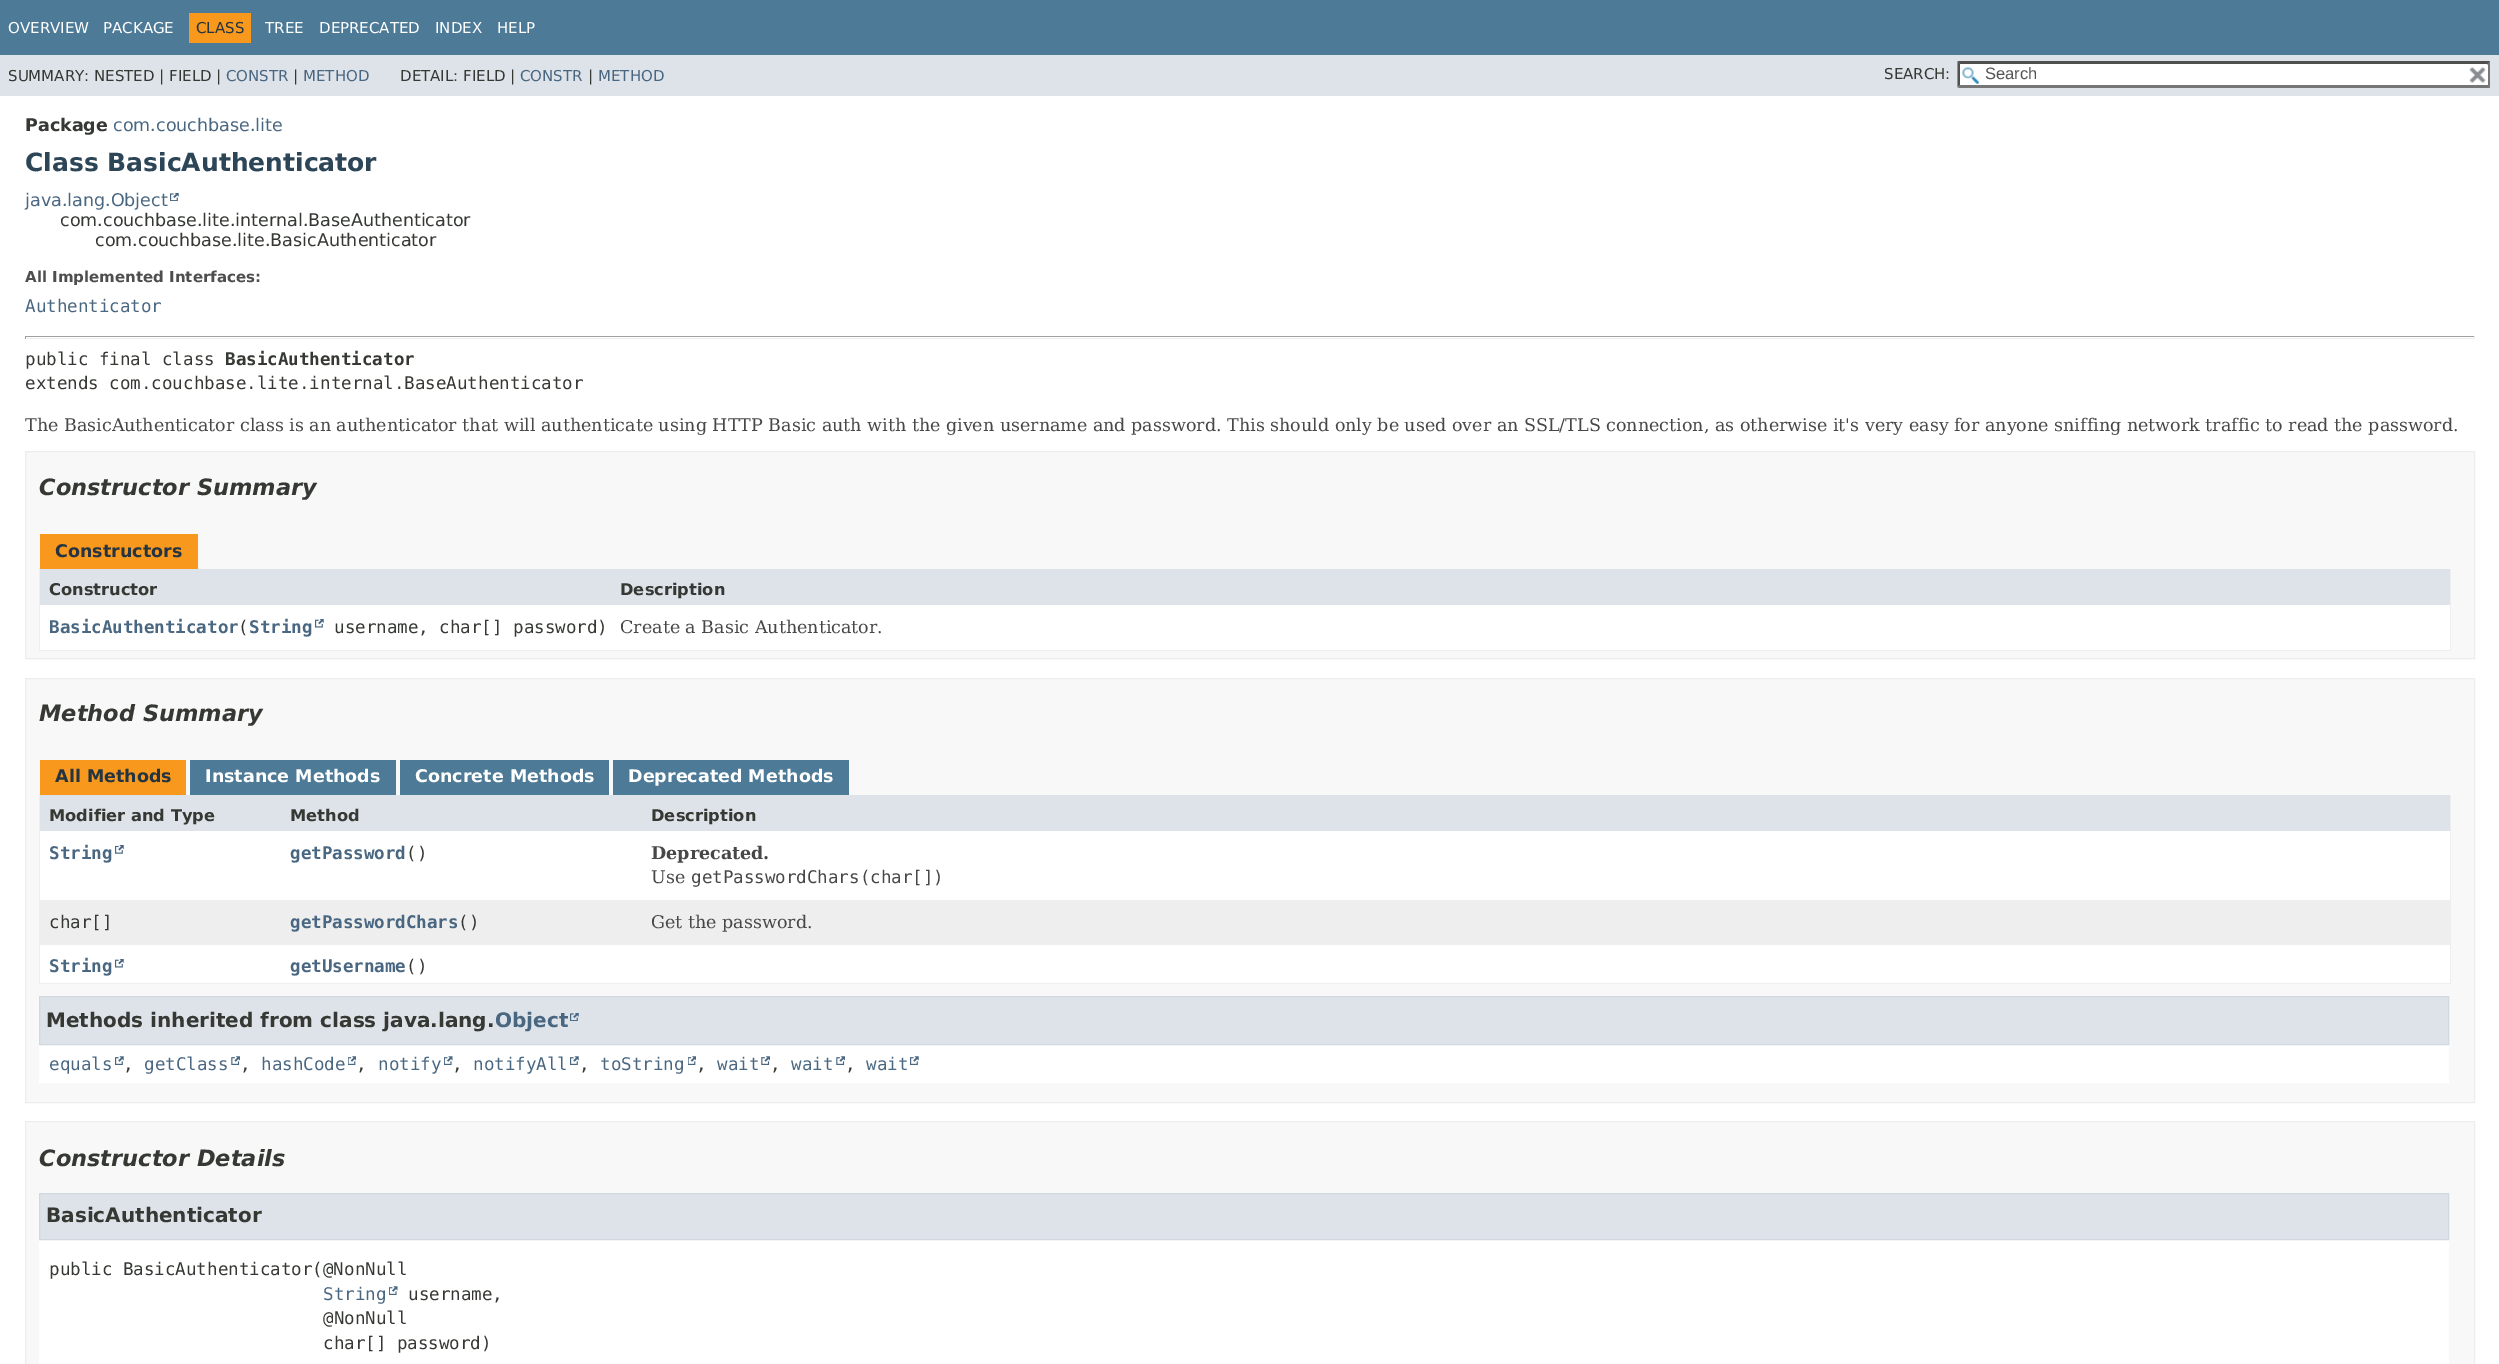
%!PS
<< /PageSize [2499 1364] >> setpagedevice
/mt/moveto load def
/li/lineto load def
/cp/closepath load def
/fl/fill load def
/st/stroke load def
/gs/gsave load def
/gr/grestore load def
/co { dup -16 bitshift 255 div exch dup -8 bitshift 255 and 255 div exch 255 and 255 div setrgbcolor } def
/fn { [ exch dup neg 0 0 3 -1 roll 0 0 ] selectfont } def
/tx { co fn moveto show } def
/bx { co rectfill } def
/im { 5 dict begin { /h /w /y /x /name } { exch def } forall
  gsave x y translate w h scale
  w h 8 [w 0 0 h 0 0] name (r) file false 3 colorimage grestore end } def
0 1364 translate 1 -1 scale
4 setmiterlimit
0 0 2499 1364 16#FFFFFF bx
0 0 2499 55 16#4D7A97 bx
189 13 62 30 16#F8981D bx
0 55 2499 41 16#DEE3E9 bx
1958 61 532 27 16#FFFFFF bx
(media/1.raw) 1962 67 17 17 im
16#4F4F4F co
1958 61 mt 2490 61 li 2488 64 li 1960 64 li cp fl
16#767676 co
2490 61 mt 2490 87.5 li 2487.5 85 li 2487.5 64 li cp fl
2490 88 mt 1958 88 li 1960 85 li 2488 85 li cp fl
16#4F4F4F co
1957.5 87.5 mt 1957.5 61 li 1960 64 li 1960 85 li cp fl
2487 65 1 20 16#FFFFFF bx
(media/2.raw) 2469 67 17 16 im
(media/3.raw) 170 193 9 8 im
25 336 2450 1 16#9F9F9F bx
2474 336 1 3 16#EEEEEE bx
25 338 2450 1 16#EEEEEE bx
25 336 1 3 16#9F9F9F bx
16#F8F8F8 co
25.5 451.5 mt 2474.5 451.5 li 2474.5 658.5 li 25.5 658.5 li cp gs fl gr
16#EDEDED co
st
40 534 158 35 16#F8981D bx
2450 569 1 82 16#EEEEEE bx
39 650 2412 1 16#EEEEEE bx
39 569 1 82 16#EEEEEE bx
40 569 2410 36 16#DEE3E9 bx
40 605 2410 45 16#FFFFFF bx
(media/4.raw) 315 619 9 9 im
16#F8F8F8 co
25.5 678.5 mt 2474.5 678.5 li 2474.5 1102.5 li 25.5 1102.5 li cp gs fl gr
16#EDEDED co
st
40 760 146 35 16#F8981D bx
190 760 206 35 16#4D7A97 bx
400 760 209 35 16#4D7A97 bx
613 760 236 35 16#4D7A97 bx
2450 795 1 189 16#EEEEEE bx
39 983 2412 1 16#EEEEEE bx
39 795 1 189 16#EEEEEE bx
40 795 603 36 16#DEE3E9 bx
643 795 1807 36 16#DEE3E9 bx
40 831 603 69 16#FFFFFF bx
(media/5.raw) 115 845 9 9 im
643 831 1807 69 16#FFFFFF bx
40 900 603 45 16#EEEEEF bx
643 900 1807 45 16#EEEEEF bx
40 945 603 38 16#FFFFFF bx
(media/4.raw) 115 959 9 9 im
643 945 1807 38 16#FFFFFF bx
39 1045 2410 38 16#FFFFFF bx
16#DEE3E9 co
39.5 996.5 mt 2448.5 996.5 li 2448.5 1044.5 li 39.5 1044.5 li cp gs fl gr
16#D0D9E0 co
st
(media/6.raw) 570 1013 9 8 im
(media/7.raw) 115 1056 9 9 im
(media/8.raw) 231 1056 9 9 im
(media/9.raw) 348 1056 8 9 im
(media/10.raw) 444 1056 9 9 im
(media/7.raw) 570 1056 9 9 im
(media/9.raw) 688 1056 8 9 im
(media/8.raw) 761 1056 9 9 im
(media/8.raw) 836 1056 9 9 im
(media/7.raw) 910 1056 9 9 im
16#F8F8F8 co
25.5 1121.5 mt 2474.5 1121.5 li 2474.5 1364.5 li 25.5 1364.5 li cp gs fl gr
16#EDEDED co
st
39 1240 2410 124 16#FFFFFF bx
16#DEE3E9 co
39.5 1193.5 mt 2448.5 1193.5 li 2448.5 1239.5 li 39.5 1239.5 li cp gs fl gr
16#D0D9E0 co
st
(media/10.raw) 389 1286 9 9 im
(OVERVIEW) 8 33 /DejaVuSans-Regular 15 16#FFFFFF tx
(PACKAGE) 103 33 /DejaVuSans-Regular 15 16#FFFFFF tx
(CLASS) 196 33 /DejaVuSans-Regular 15 16#253441 tx
(TREE) 265 33 /DejaVuSans-Regular 15 16#FFFFFF tx
(DEPRECATED) 319 33 /DejaVuSans-Regular 15 16#FFFFFF tx
(INDEX) 435 33 /DejaVuSans-Regular 15 16#FFFFFF tx
(HELP) 497 33 /DejaVuSans-Regular 15 16#FFFFFF tx
(SUMMARY: NESTED | FIELD |) 8 81 /DejaVuSans-Regular 15 16#353833 tx
(CONSTR) 226 81 /DejaVuSans-Regular 15 16#4A6782 tx
(|) 293 81 /DejaVuSans-Regular 15 16#353833 tx
(METHOD) 303 81 /DejaVuSans-Regular 15 16#4A6782 tx
(DETAIL: FIELD |) 400 81 /DejaVuSans-Regular 15 16#353833 tx
(CONSTR) 520 81 /DejaVuSans-Regular 15 16#4A6782 tx
(|) 588 81 /DejaVuSans-Regular 15 16#353833 tx
(METHOD) 598 81 /DejaVuSans-Regular 15 16#4A6782 tx
(SEARCH:) 1884 79 /DejaVuSans-Regular 15 16#353833 tx
(Search) 1985 79 /LiberationSans-Regular 16.5 16#545454 tx
(Package) 25 131 /DejaVuSans-Bold 17.5 16#353833 tx
(com.couchbase.lite) 113 131 /DejaVuSans-Regular 17.5 16#4A6782 tx
(Class BasicAuthenticator) 25 171 /DejaVuSans-Bold 25 16#2C4557 tx
(java.lang.Object) 25 206 /DejaVuSans-Regular 17.5 16#4A6782 tx
(com.couchbase.lite.internal.BaseAuthenticator) 60 226 /DejaVuSans-Regular 17.5 16#353833 tx
(com.couchbase.lite.BasicAuthenticator) 95 246 /DejaVuSans-Regular 17.5 16#353833 tx
(All Implemented Interfaces:) 25 282 /DejaVuSans-Bold 15 16#4E4E4E tx
(Authenticator) 25 312 /DejaVuSansMono-Regular 17.5 16#4A6782 tx
(public final class) 25 365 /DejaVuSansMono-Regular 17.5 16#353833 tx
(BasicAuthenticator) 225 365 /DejaVuSansMono-Bold 17.5 16#353833 tx
(extends com.couchbase.lite.internal.BaseAuthenticator) 25 389 /DejaVuSansMono-Regular 17.5 16#353833 tx
(The BasicAuthenticator class is an authenticator that will authenticate using HTTP Basic auth with the given username and password. This should only be used over an SSL/TLS connection, as otherwise it's very easy for anyone sniffing network traffic to read the password.) 25 431 /DejaVuSerif-Regular 17.5 16#474747 tx
(Constructor Summary) 39 495 /DejaVuSans-BoldItalic 22.5 16#353833 tx
(Constructors) 55 557 /DejaVuSans-Bold 17.5 16#253441 tx
(Constructor) 49 595 /DejaVuSans-Bold 16.25 16#353833 tx
(Description) 620 595 /DejaVuSans-Bold 16.25 16#353833 tx
(BasicAuthenticator String) 49 633 /DejaVuSansMono-Bold 17.5 16#4A6782 tx
(\() 238 633 /DejaVuSansMono-Regular 17.5 16#353833 tx
(username, char[] password\)) 334 633 /DejaVuSansMono-Regular 17.5 16#353833 tx
(Create a Basic Authenticator.) 620 633 /DejaVuSerif-Regular 17.5 16#474747 tx
(Method Summary) 39 721 /DejaVuSans-BoldItalic 22.5 16#353833 tx
(All Methods) 55 782 /DejaVuSans-Bold 17.5 16#253441 tx
(Instance Methods) 205 782 /DejaVuSans-Bold 17.5 16#FFFFFF tx
(Concrete Methods) 415 782 /DejaVuSans-Bold 17.5 16#FFFFFF tx
(Deprecated Methods) 628 782 /DejaVuSans-Bold 17.5 16#FFFFFF tx
(Modifier and Type) 49 821 /DejaVuSans-Bold 16.25 16#353833 tx
(Method) 290 821 /DejaVuSans-Bold 16.25 16#353833 tx
(Description) 651 821 /DejaVuSans-Bold 16.25 16#353833 tx
(String) 49 859 /DejaVuSansMono-Bold 17.5 16#4A6782 tx
(getPassword) 290 859 /DejaVuSansMono-Bold 17.5 16#4A6782 tx
(\(\)) 406 859 /DejaVuSansMono-Regular 17.5 16#353833 tx
(Deprecated.) 651 859 /DejaVuSerif-Bold 17.5 16#474747 tx
(Use) 651 883 /DejaVuSerif-Regular 17.5 16#474747 tx
(getPasswordChars\(char[]\)) 691 883 /DejaVuSansMono-Regular 17.5 16#474747 tx
(char[]) 49 928 /DejaVuSansMono-Regular 17.5 16#353833 tx
(getPasswordChars) 290 928 /DejaVuSansMono-Bold 17.5 16#4A6782 tx
(\(\)) 458 928 /DejaVuSansMono-Regular 17.5 16#353833 tx
(Get the password.) 651 928 /DejaVuSerif-Regular 17.5 16#474747 tx
(String) 49 972 /DejaVuSansMono-Bold 17.5 16#4A6782 tx
(getUsername) 290 972 /DejaVuSansMono-Bold 17.5 16#4A6782 tx
(\(\)) 406 972 /DejaVuSansMono-Regular 17.5 16#353833 tx
(Methods inherited from class java.lang.) 46 1027 /DejaVuSans-Bold 20 16#353833 tx
(Object) 495 1027 /DejaVuSans-Bold 20 16#4A6782 tx
(equals) 49 1070 /DejaVuSansMono-Regular 17.5 16#4A6782 tx
(,) 123 1070 /DejaVuSansMono-Regular 17.5 16#353833 tx
(getClass) 144 1070 /DejaVuSansMono-Regular 17.5 16#4A6782 tx
(,) 240 1070 /DejaVuSansMono-Regular 17.5 16#353833 tx
(hashCode) 261 1070 /DejaVuSansMono-Regular 17.5 16#4A6782 tx
(,) 356 1070 /DejaVuSansMono-Regular 17.5 16#353833 tx
(notify) 378 1070 /DejaVuSansMono-Regular 17.5 16#4A6782 tx
(,) 452 1070 /DejaVuSansMono-Regular 17.5 16#353833 tx
(notifyAll) 473 1070 /DejaVuSansMono-Regular 17.5 16#4A6782 tx
(,) 579 1070 /DejaVuSansMono-Regular 17.5 16#353833 tx
(toString) 600 1070 /DejaVuSansMono-Regular 17.5 16#4A6782 tx
(,) 696 1070 /DejaVuSansMono-Regular 17.5 16#353833 tx
(wait) 717 1070 /DejaVuSansMono-Regular 17.5 16#4A6782 tx
(,) 770 1070 /DejaVuSansMono-Regular 17.5 16#353833 tx
(wait) 791 1070 /DejaVuSansMono-Regular 17.5 16#4A6782 tx
(,) 845 1070 /DejaVuSansMono-Regular 17.5 16#353833 tx
(wait) 866 1070 /DejaVuSansMono-Regular 17.5 16#4A6782 tx
(Constructor Details) 39 1166 /DejaVuSans-BoldItalic 22.5 16#353833 tx
(BasicAuthenticator) 46 1222 /DejaVuSans-Bold 20 16#353833 tx
(public BasicAuthenticator\(@NonNull) 49 1275 /DejaVuSansMono-Regular 17.5 16#353833 tx
(String) 323 1300 /DejaVuSansMono-Regular 17.5 16#4A6782 tx
(username,) 408 1300 /DejaVuSansMono-Regular 17.5 16#353833 tx
(@NonNull) 323 1324 /DejaVuSansMono-Regular 17.5 16#353833 tx
(char[] password\)) 323 1349 /DejaVuSansMono-Regular 17.5 16#353833 tx
showpage
